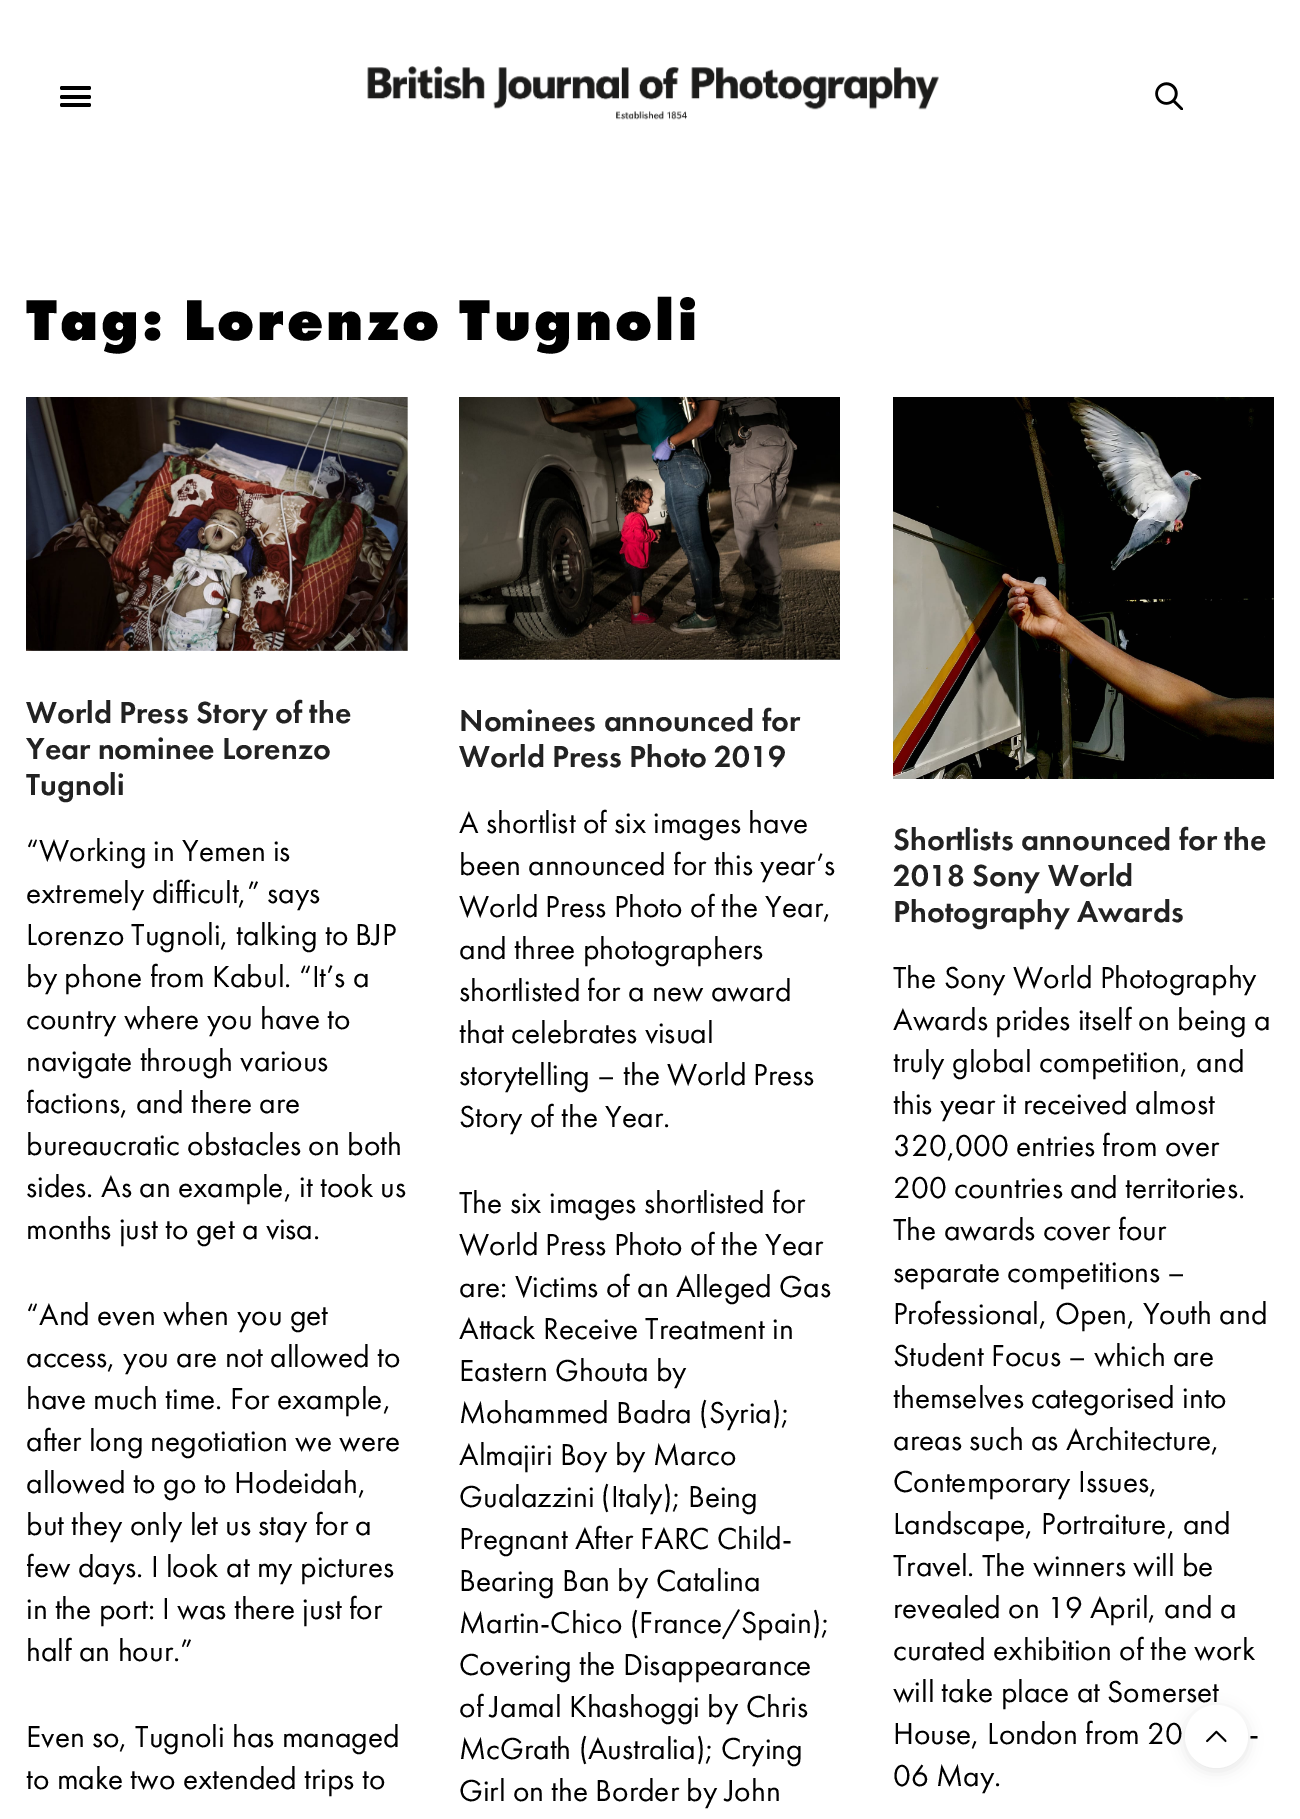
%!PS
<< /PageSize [1300 1819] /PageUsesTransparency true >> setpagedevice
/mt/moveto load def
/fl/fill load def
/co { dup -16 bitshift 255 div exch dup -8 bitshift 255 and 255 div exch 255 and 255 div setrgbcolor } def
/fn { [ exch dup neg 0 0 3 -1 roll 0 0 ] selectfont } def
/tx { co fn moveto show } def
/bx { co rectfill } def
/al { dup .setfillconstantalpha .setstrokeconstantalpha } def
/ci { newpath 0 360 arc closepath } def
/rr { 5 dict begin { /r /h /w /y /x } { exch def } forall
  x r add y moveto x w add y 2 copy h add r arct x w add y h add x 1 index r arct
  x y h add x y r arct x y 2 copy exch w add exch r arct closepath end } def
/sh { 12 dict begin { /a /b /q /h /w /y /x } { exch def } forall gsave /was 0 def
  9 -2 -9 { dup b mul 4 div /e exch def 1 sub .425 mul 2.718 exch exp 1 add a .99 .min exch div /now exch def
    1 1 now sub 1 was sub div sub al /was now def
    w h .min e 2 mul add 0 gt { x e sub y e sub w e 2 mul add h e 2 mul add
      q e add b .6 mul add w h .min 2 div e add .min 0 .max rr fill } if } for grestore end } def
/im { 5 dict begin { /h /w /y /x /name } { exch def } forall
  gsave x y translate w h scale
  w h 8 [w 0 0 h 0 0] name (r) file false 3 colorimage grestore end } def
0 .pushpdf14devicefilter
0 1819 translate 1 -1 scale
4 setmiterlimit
0 0 1300 1819 16#FFFFFF bx
16#000000 co
60 86 31 4 2 rr fl
60 95 31 4 2 rr fl
60 103 31 4 2 rr fl
(media/1.raw) 367 66 572 54 im
(media/2.raw) 1155 82 28 28 im
(media/3.raw) 26 397 382 254 im
(media/4.raw) 459 397 381 263 im
(media/5.raw) 893 397 381 382 im
1185 1708 63 63 31.5 7 .1 sh
/FuturaPT-ExtraBold 59.5 fn
26 340 mt 3 0 (Tag: Lorenzo Tugnoli) ashow
(World Press Story of the) 26 723 /FuturaPT-Medium 31.5 16#222222 tx
(Year nominee Lorenzo) 26 759 /FuturaPT-Medium 31.5 16#222222 tx
(Tugnoli) 26 795 /FuturaPT-Medium 31.5 16#222222 tx
(“Working in Yemen is) 26 861 /FuturaPT-Regular 31.5 16#000000 tx
(extremely difficult,” says) 26 903 /FuturaPT-Regular 31.5 16#000000 tx
(Lorenzo Tugnoli, talking to BJP) 26 945 /FuturaPT-Regular 31.5 16#000000 tx
(by phone from Kabul. “It’s a) 26 987 /FuturaPT-Regular 31.5 16#000000 tx
(country where you have to) 26 1029 /FuturaPT-Regular 31.5 16#000000 tx
(navigate through various) 26 1071 /FuturaPT-Regular 31.5 16#000000 tx
(factions, and there are) 26 1113 /FuturaPT-Regular 31.5 16#000000 tx
(bureaucratic obstacles on both) 26 1155 /FuturaPT-Regular 31.5 16#000000 tx
(sides. As an example, it took us) 26 1197 /FuturaPT-Regular 31.5 16#000000 tx
(months just to get a visa.) 26 1239 /FuturaPT-Regular 31.5 16#000000 tx
(“And even when you get) 26 1325 /FuturaPT-Regular 31.5 16#000000 tx
(access, you are not allowed to) 26 1367 /FuturaPT-Regular 31.5 16#000000 tx
(have much time. For example,) 26 1409 /FuturaPT-Regular 31.5 16#000000 tx
(after long negotiation we were) 26 1451 /FuturaPT-Regular 31.5 16#000000 tx
(allowed to go to Hodeidah,) 26 1493 /FuturaPT-Regular 31.5 16#000000 tx
(but they only let us stay for a) 26 1535 /FuturaPT-Regular 31.5 16#000000 tx
(few days. I look at my pictures) 26 1577 /FuturaPT-Regular 31.5 16#000000 tx
(in the port: I was there just for) 26 1619 /FuturaPT-Regular 31.5 16#000000 tx
(half an hour.”) 26 1661 /FuturaPT-Regular 31.5 16#000000 tx
(Even so, Tugnoli has managed) 26 1747 /FuturaPT-Regular 31.5 16#000000 tx
(to make two extended trips to) 26 1789 /FuturaPT-Regular 31.5 16#000000 tx
(Nominees announced for) 459 731 /FuturaPT-Medium 31.5 16#222222 tx
(World Press Photo 2019) 459 767 /FuturaPT-Medium 31.5 16#222222 tx
(A shortlist of six images have) 459 833 /FuturaPT-Regular 31.5 16#000000 tx
(been announced for this year’s) 459 875 /FuturaPT-Regular 31.5 16#000000 tx
(World Press Photo of the Year,) 459 917 /FuturaPT-Regular 31.5 16#000000 tx
(and three photographers) 459 959 /FuturaPT-Regular 31.5 16#000000 tx
(shortlisted for a new award) 459 1001 /FuturaPT-Regular 31.5 16#000000 tx
(that celebrates visual) 459 1043 /FuturaPT-Regular 31.5 16#000000 tx
(storytelling – the World Press) 459 1085 /FuturaPT-Regular 31.5 16#000000 tx
(Story of the Year.) 459 1127 /FuturaPT-Regular 31.5 16#000000 tx
(The six images shortlisted for) 459 1213 /FuturaPT-Regular 31.5 16#000000 tx
(World Press Photo of the Year) 459 1255 /FuturaPT-Regular 31.5 16#000000 tx
(are: Victims of an Alleged Gas) 459 1297 /FuturaPT-Regular 31.5 16#000000 tx
(Attack Receive Treatment in) 459 1339 /FuturaPT-Regular 31.5 16#000000 tx
(Eastern Ghouta by) 459 1381 /FuturaPT-Regular 31.5 16#000000 tx
(Mohammed Badra \(Syria\);) 459 1423 /FuturaPT-Regular 31.5 16#000000 tx
(Almajiri Boy by Marco) 459 1465 /FuturaPT-Regular 31.5 16#000000 tx
(Gualazzini \(Italy\); Being) 459 1507 /FuturaPT-Regular 31.5 16#000000 tx
(Pregnant After FARC Child-) 459 1549 /FuturaPT-Regular 31.5 16#000000 tx
(Bearing Ban by Catalina) 459 1591 /FuturaPT-Regular 31.5 16#000000 tx
(Martin-Chico \(France/Spain\);) 459 1633 /FuturaPT-Regular 31.5 16#000000 tx
(Covering the Disappearance) 459 1675 /FuturaPT-Regular 31.5 16#000000 tx
(of Jamal Khashoggi by Chris) 459 1717 /FuturaPT-Regular 31.5 16#000000 tx
(McGrath \(Australia\); Crying) 459 1759 /FuturaPT-Regular 31.5 16#000000 tx
(Girl on the Border by John) 459 1801 /FuturaPT-Regular 31.5 16#000000 tx
(Shortlists announced for the) 893 850 /FuturaPT-Medium 31.5 16#222222 tx
(2018 Sony World) 893 886 /FuturaPT-Medium 31.5 16#222222 tx
(Photography Awards) 893 922 /FuturaPT-Medium 31.5 16#222222 tx
(The Sony World Photography) 893 988 /FuturaPT-Regular 31.5 16#000000 tx
(Awards prides itself on being a) 893 1030 /FuturaPT-Regular 31.5 16#000000 tx
(truly global competition, and) 893 1072 /FuturaPT-Regular 31.5 16#000000 tx
(this year it received almost) 893 1114 /FuturaPT-Regular 31.5 16#000000 tx
(320,000 entries from over) 893 1156 /FuturaPT-Regular 31.5 16#000000 tx
(200 countries and territories.) 893 1198 /FuturaPT-Regular 31.5 16#000000 tx
(The awards cover four) 893 1240 /FuturaPT-Regular 31.5 16#000000 tx
(separate competitions –) 893 1282 /FuturaPT-Regular 31.5 16#000000 tx
(Professional, Open, Youth and) 893 1324 /FuturaPT-Regular 31.5 16#000000 tx
(Student Focus – which are) 893 1366 /FuturaPT-Regular 31.5 16#000000 tx
(themselves categorised into) 893 1408 /FuturaPT-Regular 31.5 16#000000 tx
(areas such as Architecture,) 893 1450 /FuturaPT-Regular 31.5 16#000000 tx
(Contemporary Issues,) 893 1492 /FuturaPT-Regular 31.5 16#000000 tx
(Landscape, Portraiture, and) 893 1534 /FuturaPT-Regular 31.5 16#000000 tx
(Travel. The winners will be) 893 1576 /FuturaPT-Regular 31.5 16#000000 tx
(revealed on 19 April, and a) 893 1618 /FuturaPT-Regular 31.5 16#000000 tx
(curated exhibition of the work) 893 1660 /FuturaPT-Regular 31.5 16#000000 tx
(will take place at Somerset) 893 1702 /FuturaPT-Regular 31.5 16#000000 tx
(House, London from 20) 893 1744 /FuturaPT-Regular 31.5 16#000000 tx
(-) 1249 1744 /FuturaPT-Regular 31.5 16#000000 tx
(06 May.) 893 1786 /FuturaPT-Regular 31.5 16#000000 tx
16#FFFFFF co
1216.5 1736.5 31.5 ci fl
(media/6.raw) 1206 1730 21 13 im
.poppdf14devicefilter showpage
